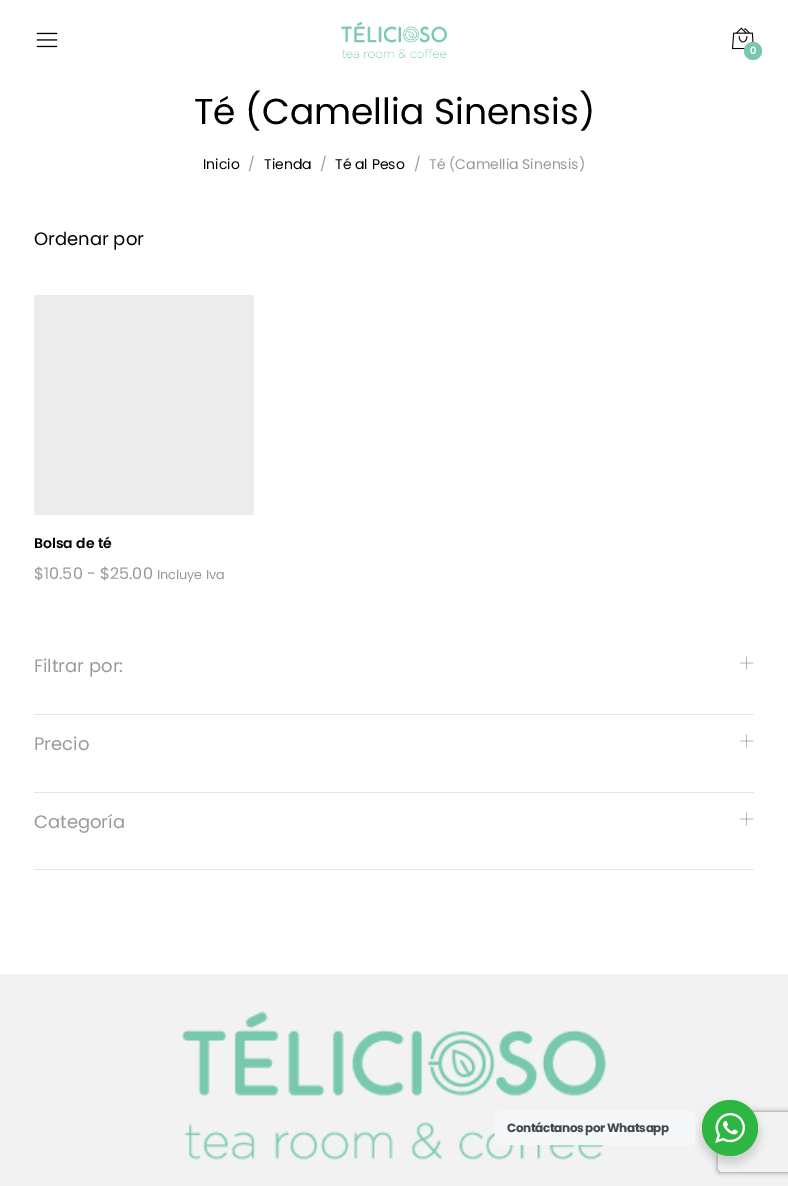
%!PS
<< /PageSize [788 1186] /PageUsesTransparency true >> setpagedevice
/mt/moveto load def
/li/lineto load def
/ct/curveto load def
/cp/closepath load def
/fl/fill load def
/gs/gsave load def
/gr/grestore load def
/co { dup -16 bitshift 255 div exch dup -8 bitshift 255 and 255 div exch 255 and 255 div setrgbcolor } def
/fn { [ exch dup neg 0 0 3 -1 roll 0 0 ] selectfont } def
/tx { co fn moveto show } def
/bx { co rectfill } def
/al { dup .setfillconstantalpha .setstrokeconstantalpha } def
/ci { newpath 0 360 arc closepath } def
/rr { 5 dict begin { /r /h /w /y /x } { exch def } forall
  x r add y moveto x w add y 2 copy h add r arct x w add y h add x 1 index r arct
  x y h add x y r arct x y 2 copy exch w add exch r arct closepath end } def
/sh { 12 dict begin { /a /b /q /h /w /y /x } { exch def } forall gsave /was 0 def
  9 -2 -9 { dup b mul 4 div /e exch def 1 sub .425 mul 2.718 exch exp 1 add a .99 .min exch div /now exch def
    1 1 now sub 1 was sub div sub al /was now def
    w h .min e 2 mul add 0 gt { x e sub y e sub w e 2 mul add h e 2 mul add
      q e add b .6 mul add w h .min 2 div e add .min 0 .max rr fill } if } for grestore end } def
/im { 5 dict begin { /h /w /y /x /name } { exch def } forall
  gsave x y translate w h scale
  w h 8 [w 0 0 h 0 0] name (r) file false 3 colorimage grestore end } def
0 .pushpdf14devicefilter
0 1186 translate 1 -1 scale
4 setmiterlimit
0 0 788 1186 16#FFFFFF bx
(media/1.raw) 36 32 22 16 im
(media/2.raw) 340 22 108 37 im
(media/3.raw) 732 27 22 23 im
16#78C8AA co
753 51 9 ci fl
34 295 220 220 16#ECECEC bx
34 714 720 1 16#E5E5E5 bx
(media/4.raw) 740 656 14 14 im
34 792 720 1 16#E5E5E5 bx
(media/4.raw) 740 734 14 14 im
34 869 720 1 16#E5E5E5 bx
(media/4.raw) 740 812 14 14 im
0 974 788 212 16#F2F2F2 bx
(media/5.raw) 181 1011 426 149 im
16#000000 co
700 1104 60 60 30 4 .14 sh
16#F5F7F9 co
495 1111 200 34 4 rr fl
gs
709 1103 mt 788 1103 li 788 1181 li 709 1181 li cp 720 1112 mt 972 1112 li 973 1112 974 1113 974 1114 ct 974 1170 li 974 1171 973 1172 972 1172 ct 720 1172 li 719 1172 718 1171 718 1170 ct 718 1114 li 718 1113 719 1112 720 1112 ct cp eoclip newpath
16#808080 co
718 1112 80 60 2 2.5 1 sh
gr
16#2DB742 co
730 1128 28 ci fl
(media/6.raw) 715 1113 30 30 im
(0) 750 54 /Poppins-SemiBold 10 16#FFFFFF tx
(Té \(Camellia Sinensis\)) 194 124 /Poppins-Regular 36 16#000000 tx
(Inicio) 203 169 /Poppins-Regular 14 16#000000 tx
(/) 248 169 /Poppins-Regular 14 16#999999 tx
(Tienda) 264 169 /Poppins-Regular 14 16#000000 tx
(/) 320 169 /Poppins-Regular 14 16#999999 tx
(Té al Peso) 335 169 /Poppins-Regular 14 16#000000 tx
(/) 414 169 /Poppins-Regular 14 16#999999 tx
(Té \(Camellia Sinensis\)) 429 169 /Poppins-Regular 14 16#999999 tx
(Ordenar por) 34 245 /Poppins-Regular 18 16#000000 tx
(Bolsa de té) 34 548 /Poppins-SemiBold 14 16#000000 tx
($10.50 - $25.00) 34 579 /Poppins-Regular 16 16#999999 tx
(Incluye Iva) 157 579 /Poppins-Regular 12.75 16#999999 tx
(Filtrar por:) 34 672 /Poppins-Regular 18 16#999999 tx
(Precio) 34 750 /Poppins-Regular 18 16#999999 tx
(Categoría) 34 828 /Poppins-Regular 18 16#999999 tx
/Poppins-Bold 12 fn
16#43474E co
507 1132 mt -.4 0 (Contáctanos por Whatsapp) ashow
.poppdf14devicefilter showpage
